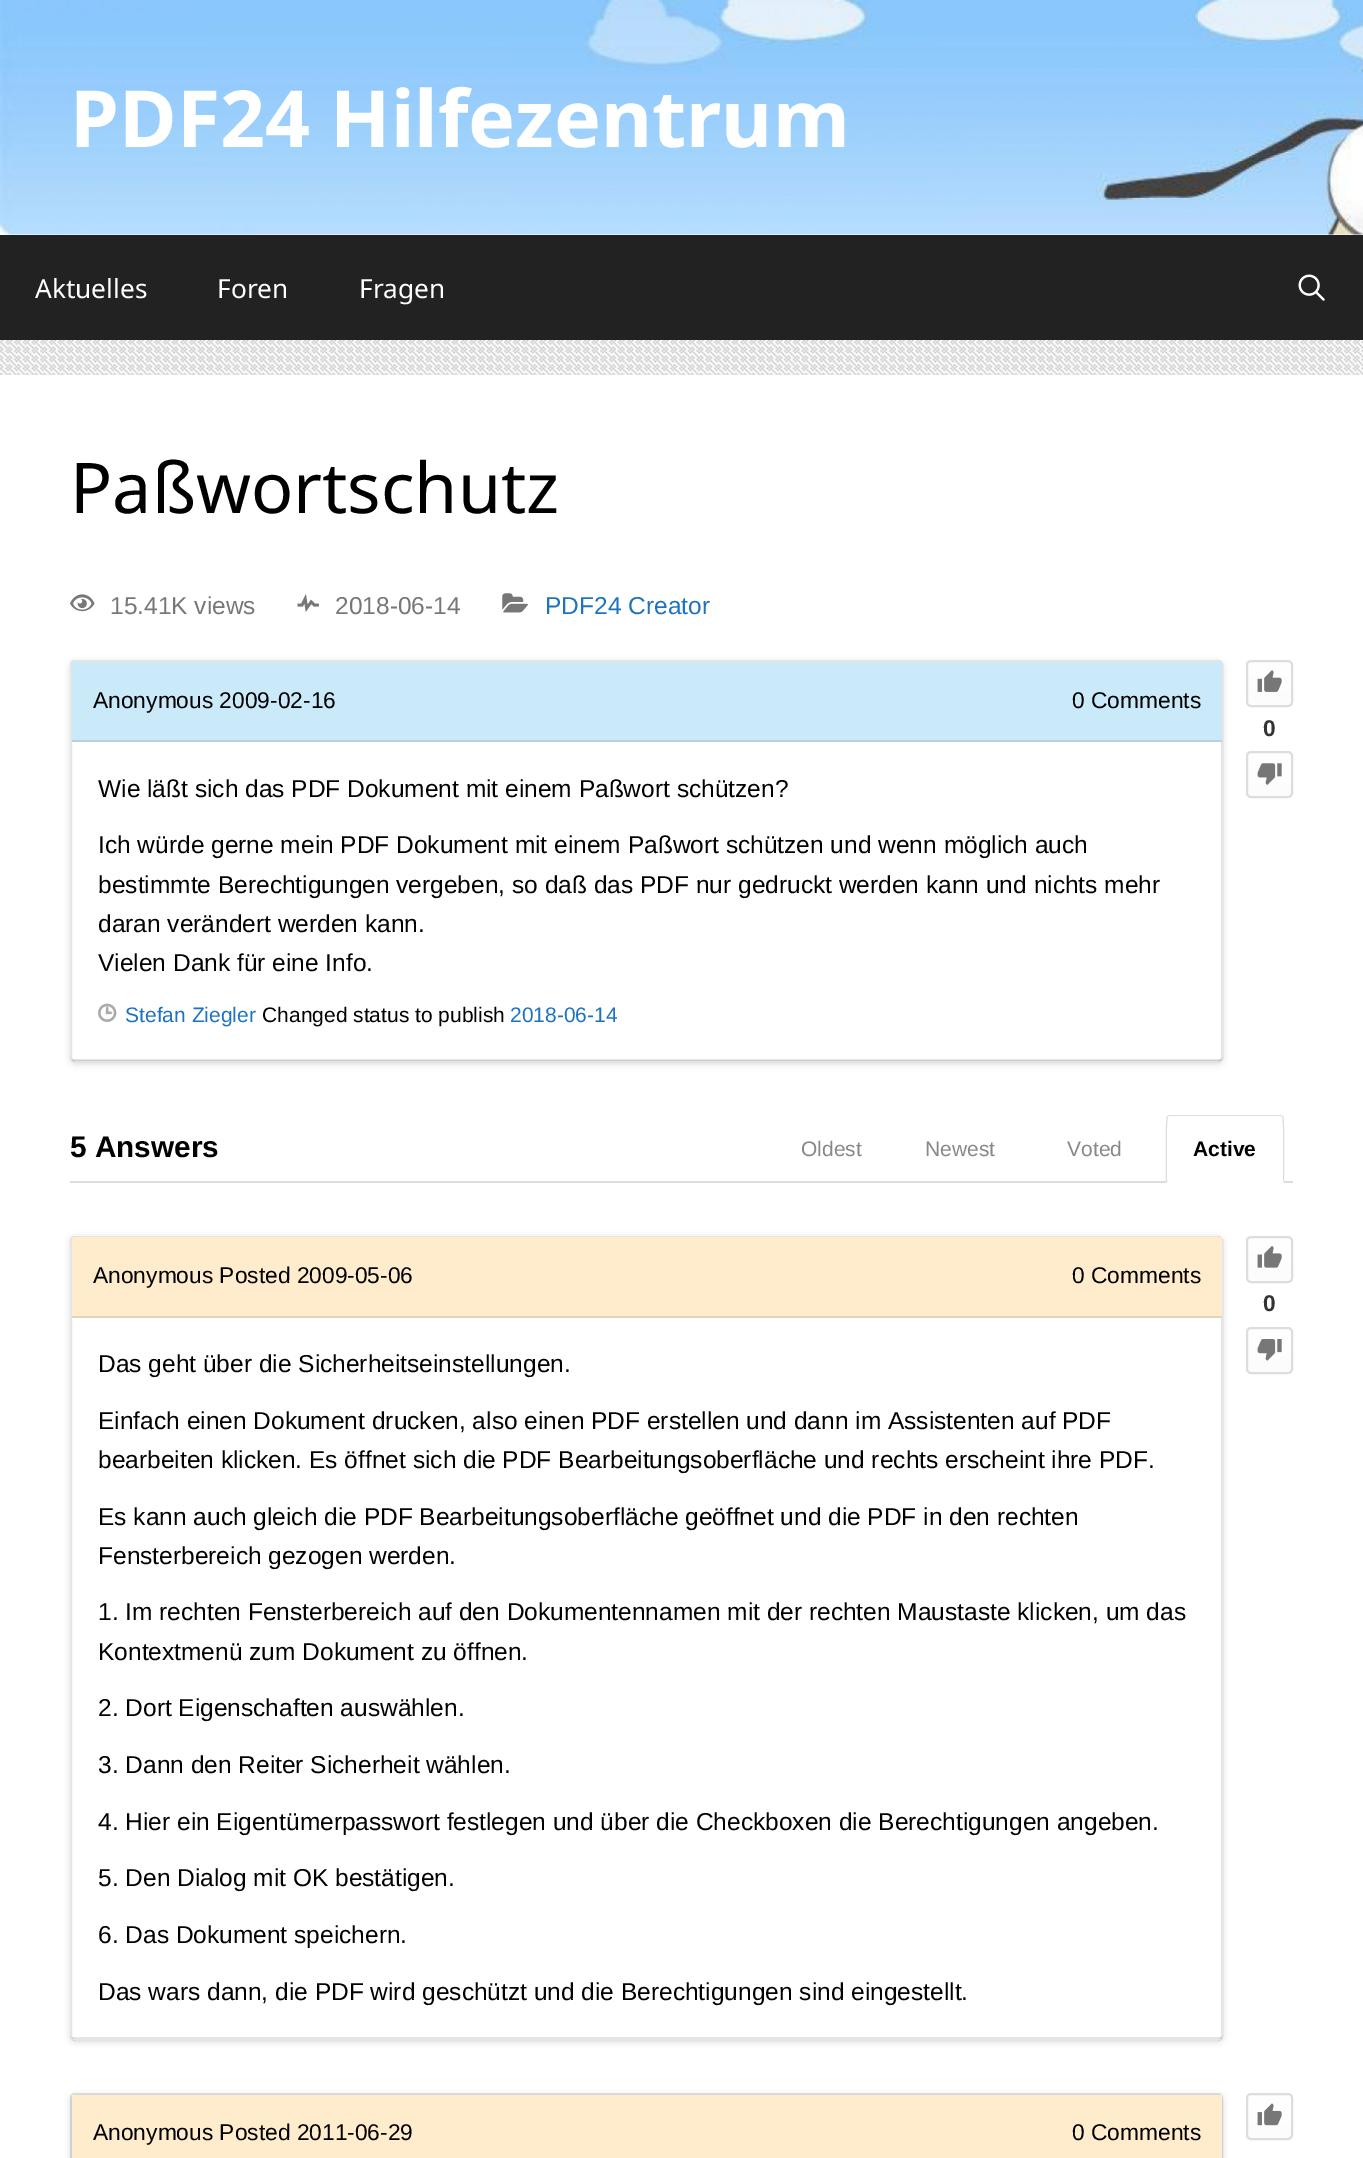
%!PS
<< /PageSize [1363 2158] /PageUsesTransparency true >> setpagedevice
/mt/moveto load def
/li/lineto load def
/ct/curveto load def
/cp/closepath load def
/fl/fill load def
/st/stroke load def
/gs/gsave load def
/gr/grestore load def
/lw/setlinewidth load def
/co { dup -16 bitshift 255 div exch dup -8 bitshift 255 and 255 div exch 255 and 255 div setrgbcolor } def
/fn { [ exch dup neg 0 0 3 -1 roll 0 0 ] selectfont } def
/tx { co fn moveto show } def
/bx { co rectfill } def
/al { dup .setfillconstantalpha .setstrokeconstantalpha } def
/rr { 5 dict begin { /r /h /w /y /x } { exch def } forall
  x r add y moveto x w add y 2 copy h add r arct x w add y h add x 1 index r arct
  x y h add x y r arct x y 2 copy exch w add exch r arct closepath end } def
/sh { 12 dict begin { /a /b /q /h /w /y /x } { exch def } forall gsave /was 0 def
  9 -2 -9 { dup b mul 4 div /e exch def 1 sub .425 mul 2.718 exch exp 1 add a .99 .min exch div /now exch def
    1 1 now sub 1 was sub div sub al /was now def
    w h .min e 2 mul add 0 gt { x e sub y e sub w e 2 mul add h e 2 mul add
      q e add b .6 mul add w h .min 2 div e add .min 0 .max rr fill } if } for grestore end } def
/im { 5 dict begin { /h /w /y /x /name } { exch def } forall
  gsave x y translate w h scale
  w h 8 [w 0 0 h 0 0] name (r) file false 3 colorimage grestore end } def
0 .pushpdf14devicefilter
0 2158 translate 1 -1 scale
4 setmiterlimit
0 0 1363 2158 16#FFFFFF bx
(media/1.raw) 0 340 1363 35 im
(media/2.raw) 0 0 1363 235 im
0 235 1363 105 16#222222 bx
(media/3.raw) 1298 274 27 27 im
(media/4.raw) 70 594 25 18 im
(media/5.raw) 297 594 22 18 im
(media/6.raw) 502 593 26 20 im
gs
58 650 mt 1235 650 li 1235 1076 li 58 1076 li cp 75 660 mt 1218 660 li 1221 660 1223 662 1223 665 ct 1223 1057 li 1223 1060 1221 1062 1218 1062 ct 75 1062 li 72 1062 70 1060 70 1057 ct 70 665 li 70 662 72 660 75 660 ct cp eoclip newpath
16#000000 co
70 662 1153 402 5 3.5 .14 sh
gr
0.1 al
16#000000 co
2 lw
71 661 1151 400 4 rr st
1 al
72 662 1150 78 16#CAE9F9 bx
72 740 1150 2 16#B6D2E0 bx
(media/7.raw) 98 1003 19 19 im
0.1 al
72 1059 1150 2 16#000000 bx
gs
1246 660 47 47 5 rr clip newpath
1 al
gs 1246 662 mt 1293 662 li 1293 705 li 1246 705 li cp clip newpath
<< /ShadingType 2 /ColorSpace /DeviceRGB /Coords [1270 662 1270 705] /Extend [true true] /Function << /FunctionType 2 /Domain [0 1] /C0 [1 1 1] /C1 [.988 .988 .988] /N 1 >> >> shfill gr
gr
1 al
16#DDDDDD co
1247 661 45 45 4 rr st
(media/8.raw) 1257 670 25 22 im
gs
1246 751 47 47 5 rr clip newpath
gs 1246 753 mt 1293 753 li 1293 796 li 1246 796 li cp clip newpath
<< /ShadingType 2 /ColorSpace /DeviceRGB /Coords [1270 753 1270 796] /Extend [true true] /Function << /FunctionType 2 /Domain [0 1] /C0 [1 1 1] /C1 [.988 .988 .988] /N 1 >> >> shfill gr
gr
1247 752 45 45 4 rr st
(media/9.raw) 1257 763 25 22 im
70 1181 1223 2 16#DDDDDD bx
1169 1115 mt 1167 1116 li 1168 1117 li 1169 1116 li 1281 1116 li 1282 1117 li 1283 1116 li 1281 1115 li cp fl
1284 1182 mt 1284 1175 1285 1118 1283 1116 ct 1282 1117 li 1284 1118 1283 1174 1283 1181 ct 1282 1181 li cp fl
16#FFFFFF co
1166 1183 mt 1284 1183 li 1284 1182 li 1282 1181 li 1168 1181 li cp fl
16#DDDDDD co
1167 1116 mt 1165 1118 1166 1175 1166 1182 ct 1168 1181 li 1167 1181 li 1167 1174 1166 1118 1168 1117 ct cp fl
gs
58 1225 mt 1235 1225 li 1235 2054 li 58 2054 li cp 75 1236 mt 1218 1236 li 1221 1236 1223 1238 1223 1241 ct 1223 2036 li 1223 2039 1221 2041 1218 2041 ct 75 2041 li 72 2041 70 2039 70 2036 ct 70 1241 li 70 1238 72 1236 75 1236 ct cp eoclip newpath
16#000000 co
70 1237 1153 805 5 3.5 .14 sh
gr
0.1 al
16#000000 co
71 1237 1151 803 4 rr st
1 al
72 1237 1150 79 16#FFECCC bx
72 1316 1150 2 16#E6D4B8 bx
0.1 al
72 2037 1150 2 16#000000 bx
gs
1246 1236 47 47 5 rr clip newpath
1 al
gs 1246 1237 mt 1293 1237 li 1293 1281 li 1246 1281 li cp clip newpath
<< /ShadingType 2 /ColorSpace /DeviceRGB /Coords [1270 1237 1270 1281] /Extend [true true] /Function << /FunctionType 2 /Domain [0 1] /C0 [1 1 1] /C1 [.988 .988 .988] /N 1 >> >> shfill gr
gr
1 al
16#DDDDDD co
1247 1237 45 45 4 rr st
(media/10.raw) 1257 1246 25 22 im
gs
1246 1327 47 47 5 rr clip newpath
gs 1246 1328 mt 1293 1328 li 1293 1372 li 1246 1372 li cp clip newpath
<< /ShadingType 2 /ColorSpace /DeviceRGB /Coords [1270 1328 1270 1372] /Extend [true true] /Function << /FunctionType 2 /Domain [0 1] /C0 [1 1 1] /C1 [.988 .988 .988] /N 1 >> >> shfill gr
gr
1247 1328 45 45 4 rr st
(media/11.raw) 1257 1339 25 22 im
16#000000 co
70 2095 1153 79 5 3.5 .14 sh
0.1 al
71 2094 1151 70 4 rr st
1 al
72 2095 1150 63 16#FFECCC bx
gs
1246 2093 47 47 5 rr clip newpath
gs 1246 2095 mt 1293 2095 li 1293 2139 li 1246 2139 li cp clip newpath
<< /ShadingType 2 /ColorSpace /DeviceRGB /Coords [1270 2095 1270 2139] /Extend [true true] /Function << /FunctionType 2 /Domain [0 1] /C0 [1 1 1] /C1 [.988 .988 .988] /N 1 >> >> shfill gr
gr
16#DDDDDD co
1247 2094 45 45 4 rr st
(media/12.raw) 1257 2103 25 23 im
(PDF24 Hilfezentrum) 70 147 /NotoSans-Bold 78.75 16#FFFFFF tx
(Aktuelles) 35 298 /NotoSans-Regular 26.25 16#FFFFFF tx
(Foren) 217 298 /NotoSans-Regular 26.25 16#FFFFFF tx
(Fragen) 359 298 /NotoSans-Regular 26.25 16#FFFFFF tx
(Paßwortschutz) 70 513 /NotoSans-Regular 70 16#000000 tx
(15.41K views) 110 614 /LiberationSans-Regular 24.5 16#777777 tx
(2018-06-14) 335 614 /LiberationSans-Regular 24.5 16#777777 tx
(PDF24 Creator) 545 614 /LiberationSans-Regular 24.5 16#1E73BE tx
(Anonymous 2009-02-16) 93 708 /LiberationSans-Regular 22.75 16#000000 tx
(0 Comments) 1072 708 /LiberationSans-Regular 22.75 16#000000 tx
(Wie läßt sich das PDF Dokument mit einem Paßwort schützen?) 98 797 /LiberationSans-Regular 24.5 16#000000 tx
(Ich würde gerne mein PDF Dokument mit einem Paßwort schützen und wenn möglich auch) 98 853 /LiberationSans-Regular 24.5 16#000000 tx
(bestimmte Berechtigungen vergeben, so daß das PDF nur gedruckt werden kann und nichts mehr) 98 893 /LiberationSans-Regular 24.5 16#000000 tx
(daran verändert werden kann.) 98 932 /LiberationSans-Regular 24.5 16#000000 tx
(Vielen Dank für eine Info.) 98 971 /LiberationSans-Regular 24.5 16#000000 tx
(Stefan Ziegler) 125 1022 /LiberationSans-Regular 21 16#1E73BE tx
(Changed status to publish) 262 1022 /LiberationSans-Regular 21 16#000000 tx
(2018-06-14) 510 1022 /LiberationSans-Regular 21 16#1E73BE tx
(0) 1263 736 /LiberationSans-Bold 22.75 16#333333 tx
(5 Answers) 70 1157 /LiberationSans-Bold 29.75 16#000000 tx
(Oldest) 801 1156 /LiberationSans-Regular 21 16#888888 tx
(Newest) 925 1156 /LiberationSans-Regular 21 16#888888 tx
(Voted) 1067 1156 /LiberationSans-Regular 21 16#888888 tx
(Active) 1193 1156 /LiberationSans-Bold 21 16#000000 tx
(Anonymous Posted 2009-05-06) 93 1283 /LiberationSans-Regular 22.75 16#000000 tx
(0 Comments) 1072 1283 /LiberationSans-Regular 22.75 16#000000 tx
(Das geht über die Sicherheitseinstellungen.) 98 1372 /LiberationSans-Regular 24.5 16#000000 tx
(Einfach einen Dokument drucken, also einen PDF erstellen und dann im Assistenten auf PDF) 98 1429 /LiberationSans-Regular 24.5 16#000000 tx
(bearbeiten klicken. Es öffnet sich die PDF Bearbeitungsoberfläche und rechts erscheint ihre PDF.) 98 1468 /LiberationSans-Regular 24.5 16#000000 tx
(Es kann auch gleich die PDF Bearbeitungsoberfläche geöffnet und die PDF in den rechten) 98 1525 /LiberationSans-Regular 24.5 16#000000 tx
(Fensterbereich gezogen werden.) 98 1564 /LiberationSans-Regular 24.5 16#000000 tx
(1. Im rechten Fensterbereich auf den Dokumentennamen mit der rechten Maustaste klicken, um das) 98 1620 /LiberationSans-Regular 24.5 16#000000 tx
(Kontextmenü zum Dokument zu öffnen.) 98 1660 /LiberationSans-Regular 24.5 16#000000 tx
(2. Dort Eigenschaften auswählen.) 98 1716 /LiberationSans-Regular 24.5 16#000000 tx
(3. Dann den Reiter Sicherheit wählen.) 98 1773 /LiberationSans-Regular 24.5 16#000000 tx
(4. Hier ein Eigentümerpasswort festlegen und über die Checkboxen die Berechtigungen angeben.) 98 1830 /LiberationSans-Regular 24.5 16#000000 tx
(5. Den Dialog mit OK bestätigen.) 98 1886 /LiberationSans-Regular 24.5 16#000000 tx
(6. Das Dokument speichern.) 98 1943 /LiberationSans-Regular 24.5 16#000000 tx
(Das wars dann, die PDF wird geschützt und die Berechtigungen sind eingestellt.) 98 2000 /LiberationSans-Regular 24.5 16#000000 tx
(0) 1263 1311 /LiberationSans-Bold 22.75 16#333333 tx
(Anonymous Posted 2011-06-29) 93 2140 /LiberationSans-Regular 22.75 16#000000 tx
(0 Comments) 1072 2140 /LiberationSans-Regular 22.75 16#000000 tx
.poppdf14devicefilter showpage
